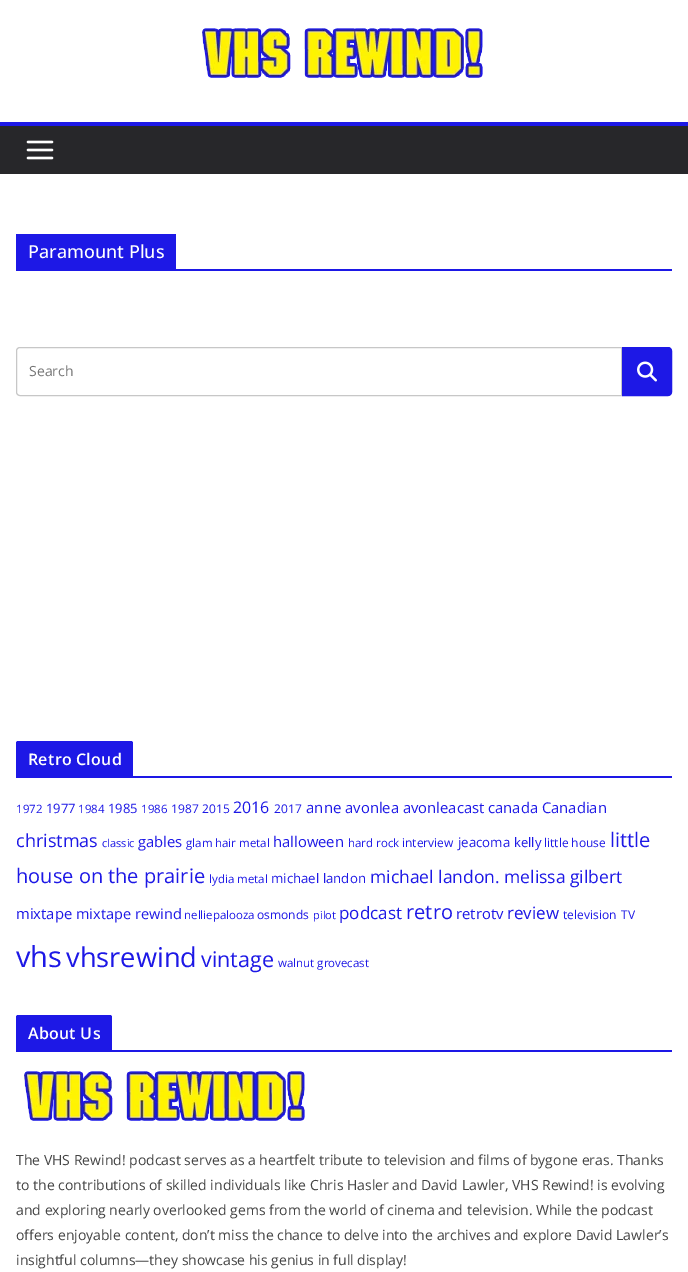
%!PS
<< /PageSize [688 1272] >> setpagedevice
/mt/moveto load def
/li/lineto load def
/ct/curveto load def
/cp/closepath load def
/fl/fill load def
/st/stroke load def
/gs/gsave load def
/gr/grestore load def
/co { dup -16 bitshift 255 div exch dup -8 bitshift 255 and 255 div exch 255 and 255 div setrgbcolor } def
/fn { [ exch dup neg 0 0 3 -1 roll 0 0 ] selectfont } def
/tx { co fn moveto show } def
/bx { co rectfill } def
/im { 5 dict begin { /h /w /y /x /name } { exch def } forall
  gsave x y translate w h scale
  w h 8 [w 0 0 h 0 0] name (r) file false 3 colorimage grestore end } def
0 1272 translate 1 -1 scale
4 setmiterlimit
0 0 688 1272 16#FFFFFF bx
(media/1.raw) 202 28 281 50 im
0 126 688 48 16#27272A bx
0 122 688 4 16#1D18E6 bx
(media/2.raw) 26 140 28 20 im
16 269 656 2 16#1D18E6 bx
16 234 160 35 16#1D18E6 bx
16#C7C7C7 co
20 347.5 mt 621.5 347.5 li 621.5 395.5 li 20 395.5 li 18 395.5 16.5 394 16.5 392 ct 16.5 351 li 16.5 349 18 347.5 20 347.5 ct cp st
16#1D18E6 co
622.5 347.5 mt 668 347.5 li 670 347.5 671.5 349 671.5 351 ct 671.5 392 li 671.5 394 670 395.5 668 395.5 ct 622.5 395.5 li cp gs fl gr
st
(media/3.raw) 637 361 20 21 im
16 776 656 2 16#1D18E6 bx
18 741 mt 131 741 li 132 741 133 742 133 743 ct 133 776 li 16 776 li 16 743 li 16 742 17 741 18 741 ct cp fl
16 1050 656 2 16#1D18E6 bx
18 1015 mt 110 1015 li 111 1015 112 1016 112 1017 ct 112 1050 li 16 1050 li 16 1017 li 16 1016 17 1015 18 1015 ct cp fl
(media/1.raw) 24 1071 281 50 im
(Paramount Plus) 28 258 /OpenSans-Medium 18 16#FFFFFF tx
(Search) 29 376 /OpenSans-Regular 14 16#757575 tx
/OpenSans-SemiBold 16 fn
16#FFFFFF co
28 765 mt .25 0 (Retro Cloud) ashow
(1972) 16 813 /OpenSans-Regular 11.5 16#1D18E6 tx
(1977) 46 813 /OpenSans-Regular 13 16#1D18E6 tx
(1984) 78 813 /OpenSans-Regular 11.5 16#1D18E6 tx
(1985) 108 813 /OpenSans-Regular 13 16#1D18E6 tx
(1986) 141 813 /OpenSans-Regular 11.5 16#1D18E6 tx
(1987) 171 813 /OpenSans-Regular 12 16#1D18E6 tx
(2015) 202 813 /OpenSans-Regular 12 16#1D18E6 tx
(2016) 233 813 /OpenSans-Regular 16 16#1D18E6 tx
(2017) 274 813 /OpenSans-Regular 12 16#1D18E6 tx
(anne) 306 813 /OpenSans-Regular 15 16#1D18E6 tx
(avonlea avonleacast canada Canadian) 345 813 /OpenSans-Regular 14.8 16#1D18E6 tx
(christmas) 16 847 /OpenSans-Regular 18 16#1D18E6 tx
(classic) 102 847 /OpenSans-Regular 11 16#1D18E6 tx
(gables) 138 847 /OpenSans-Regular 14.8 16#1D18E6 tx
(glam) 186 847 /OpenSans-Regular 11.5 16#1D18E6 tx
(hair metal) 215 847 /OpenSans-Regular 11.5 16#1D18E6 tx
(halloween) 273 847 /OpenSans-Regular 14.8 16#1D18E6 tx
(hard rock) 348 847 /OpenSans-Regular 11.5 16#1D18E6 tx
(interview) 402 847 /OpenSans-Regular 12 16#1D18E6 tx
(jeacoma) 458 847 /OpenSans-Regular 13.25 16#1D18E6 tx
(kelly) 514 847 /OpenSans-Regular 13 16#1D18E6 tx
(little house) 544 847 /OpenSans-Regular 12 16#1D18E6 tx
(little) 610 847 /OpenSans-Regular 20 16#1D18E6 tx
(house on the prairie) 16 883 /OpenSans-Regular 20 16#1D18E6 tx
(lydia) 209 883 /OpenSans-Regular 11.5 16#1D18E6 tx
(metal) 237 883 /OpenSans-Regular 11.5 16#1D18E6 tx
(michael landon) 271 883 /OpenSans-Regular 13.25 16#1D18E6 tx
(michael landon. melissa gilbert) 370 883 /OpenSans-Regular 17.5 16#1D18E6 tx
(mixtape) 16 919 /OpenSans-Regular 14.8 16#1D18E6 tx
(mixtape rewind) 76 919 /OpenSans-Regular 14.5 16#1D18E6 tx
(nelliepalooza) 184 919 /OpenSans-Regular 11.5 16#1D18E6 tx
(osmonds) 257 919 /OpenSans-Regular 12 16#1D18E6 tx
(pilot) 313 919 /OpenSans-Regular 11 16#1D18E6 tx
(podcast) 339 919 /OpenSans-Regular 17 16#1D18E6 tx
(retro) 406 919 /OpenSans-Regular 20 16#1D18E6 tx
(retrotv) 456 919 /OpenSans-Regular 14.8 16#1D18E6 tx
(review) 507 919 /OpenSans-Regular 17 16#1D18E6 tx
(television) 563 919 /OpenSans-Regular 12 16#1D18E6 tx
(TV) 621 919 /OpenSans-Regular 12 16#1D18E6 tx
(vhs) 16 967 /OpenSans-Regular 29 16#1D18E6 tx
(vhsrewind) 66 967 /OpenSans-Regular 27.25 16#1D18E6 tx
(vintage) 201 967 /OpenSans-Regular 21.5 16#1D18E6 tx
(walnut grovecast) 278 967 /OpenSans-Regular 11.5 16#1D18E6 tx
/OpenSans-SemiBold 16 fn
16#FFFFFF co
28 1039 mt .25 0 (About Us) ashow
(The VHS Rewind! podcast serves as a heartfelt tribute to television and films of bygone eras. Thanks) 16 1165 /OpenSans-Regular 14 16#444444 tx
(to the contributions of skilled individuals like Chris Hasler and David Lawler, VHS Rewind! is evolving) 16 1190 /OpenSans-Regular 14 16#444444 tx
(and exploring nearly overlooked gems from the world of cinema and television. While the podcast) 16 1215 /OpenSans-Regular 14 16#444444 tx
(offers enjoyable content, don’t miss the chance to delve into the archives and explore David Lawler’s) 16 1240 /OpenSans-Regular 14 16#444444 tx
(insightful columns—they showcase his genius in full display!) 16 1265 /OpenSans-Regular 14 16#444444 tx
showpage
